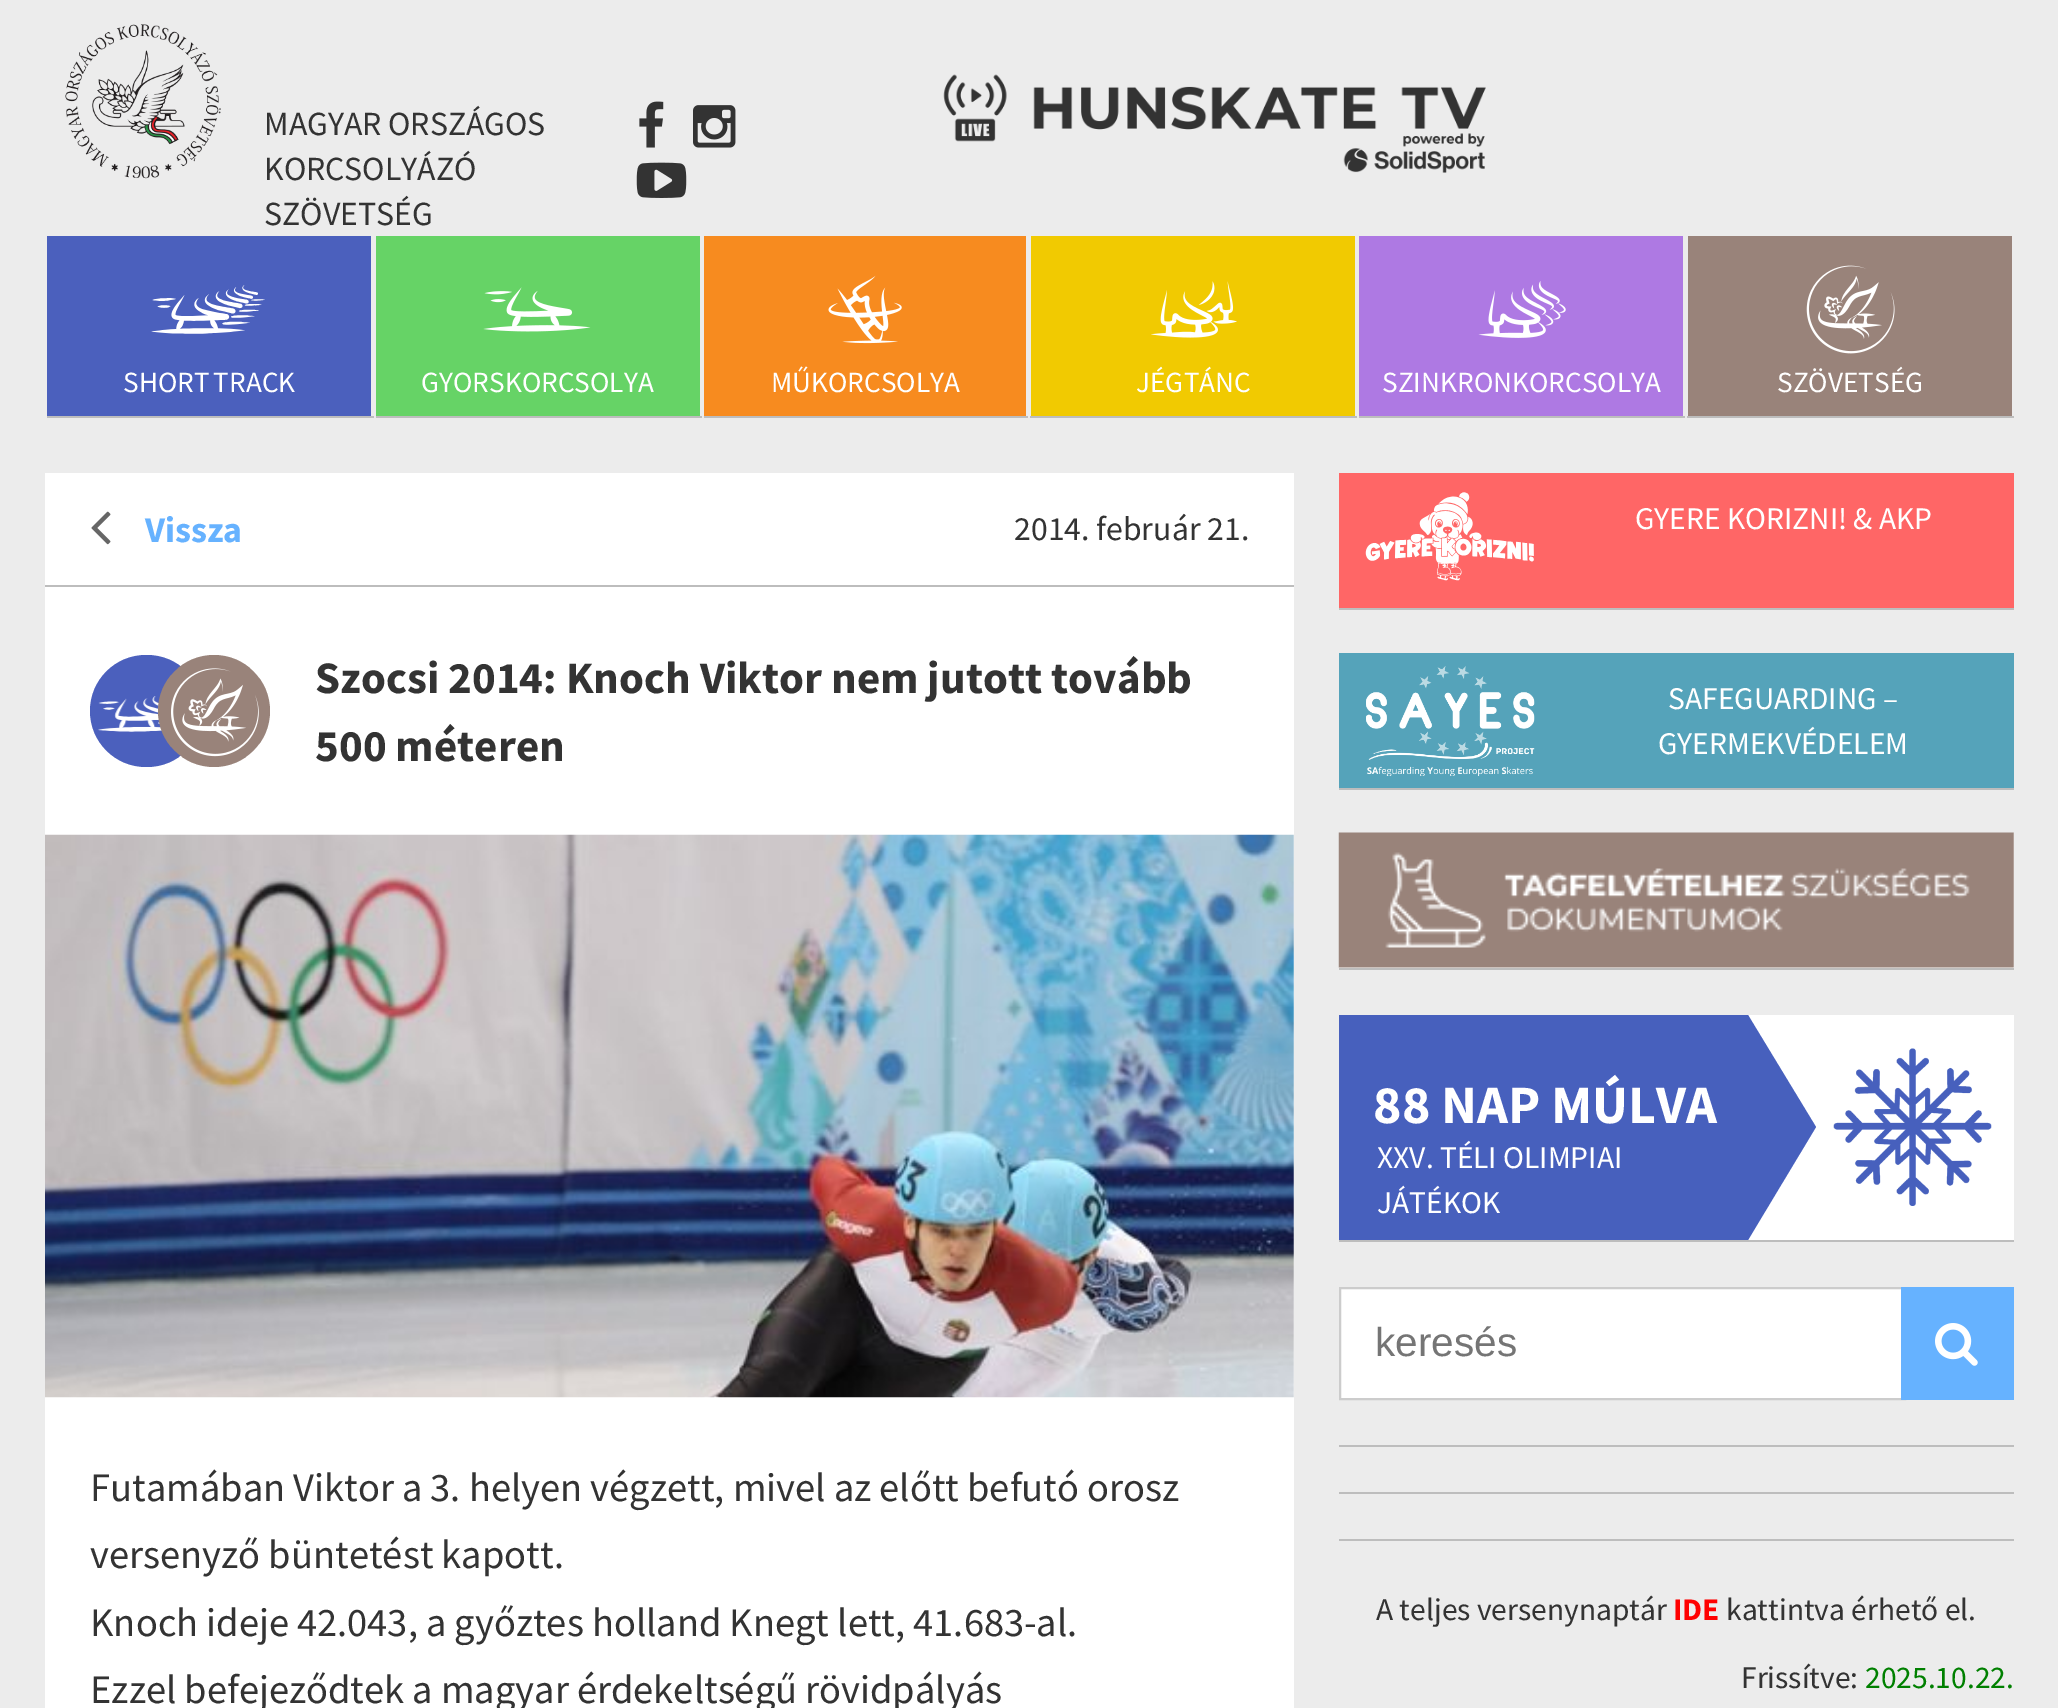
%!PS
<< /PageSize [2058 1708] >> setpagedevice
/mt/moveto load def
/li/lineto load def
/cp/closepath load def
/fl/fill load def
/lw/setlinewidth load def
/co { dup -16 bitshift 255 div exch dup -8 bitshift 255 and 255 div exch 255 and 255 div setrgbcolor } def
/fn { [ exch dup neg 0 0 3 -1 roll 0 0 ] selectfont } def
/tx { co fn moveto show } def
/bx { co rectfill } def
/ci { newpath 0 360 arc closepath } def
/rr { 5 dict begin { /r /h /w /y /x } { exch def } forall
  x r add y moveto x w add y 2 copy h add r arct x w add y h add x 1 index r arct
  x y h add x y r arct x y 2 copy exch w add exch r arct closepath end } def
/im { 5 dict begin { /h /w /y /x /name } { exch def } forall
  gsave x y translate w h scale
  w h 8 [w 0 0 h 0 0] name (r) file false 3 colorimage grestore end } def
0 1708 translate 1 -1 scale
4 setmiterlimit
0 0 2058 1708 16#ECECEC bx
(media/1.raw) 65 24 156 155 im
(media/2.raw) 639 101 25 47 im
(media/3.raw) 693 105 43 43 im
(media/4.raw) 636 162 51 36 im
(media/5.raw) 943 74 543 99 im
45 416 1969 2 16#BDBDBD bx
45 416 2 3 16#ECECEC bx
47 236 324 180 16#4B60BD bx
(media/6.raw) 151 285 114 49 im
374 416 2 3 16#ECECEC bx
376 236 324 180 16#66D366 bx
(media/7.raw) 483 287 108 45 im
702 416 2 3 16#ECECEC bx
704 236 322 180 16#F78B1F bx
(media/8.raw) 828 275 74 69 im
1028 416 2 3 16#ECECEC bx
1031 236 324 180 16#F1CA01 bx
(media/9.raw) 1151 281 86 57 im
1357 416 2 3 16#ECECEC bx
1359 236 324 180 16#AE79E3 bx
(media/10.raw) 1478 281 88 57 im
1685 416 2 3 16#ECECEC bx
1688 236 324 180 16#99837A bx
(media/11.raw) 1806 265 89 89 im
45 473 1249 1235 16#FFFFFF bx
45 585 1249 2 16#BDBDBD bx
(media/12.raw) 91 511 20 34 im
16#4B60BD co
90 655 113 112 56 rr fl
(media/13.raw) 98 696 64 36 im
16#99837A co
214 711 56 ci fl
(media/14.raw) 171 668 88 89 im
(media/15.raw) 45 834 1249 564 im
1339 608 675 2 16#BDBDBD bx
1339 473 675 135 16#FF6666 bx
(media/16.raw) 1365 492 169 89 im
1339 788 675 2 16#BDBDBD bx
1339 653 675 135 16#55A3BA bx
(media/17.raw) 1366 666 169 110 im
1339 833 675 135 16#FFFFFF bx
1339 968 675 2 16#BDBDBD bx
(media/18.raw) 1338 832 676 136 im
1748 1015 266 225 16#FFFFFF bx
1339 1240 675 2 16#BDBDBD bx
1339 1015 409 225 16#4760BD bx
1748 1240 mt 1748 1015 li 1816 1127 li cp fl
(media/19.raw) 1833 1048 159 158 im
1341 1289 560 109 16#FFFFFF bx
16#CCCCCC co
2 lw
1340 1288 565 111 rectstroke
1901 1287 113 113 16#66B2FF bx
(media/20.raw) 1935 1323 43 43 im
1339 1445 675 2 16#BDBDBD bx
1339 1492 675 2 16#BDBDBD bx
1339 1539 675 2 16#BDBDBD bx
(MAGYAR ORSZÁGOS) 264 135 /SourceSansPro-Regular 33.75 16#333333 tx
(KORCSOLYÁZÓ) 264 180 /SourceSansPro-Regular 33.75 16#333333 tx
(SZÖVETSÉG) 264 225 /SourceSansPro-Regular 33.75 16#333333 tx
/SourceSansPro-Regular 29.25 fn
16#FFFFFF co
123 392 mt -2 0 32 (SHORT TRACK) widthshow
(GYORSKORCSOLYA) 421 392 /SourceSansPro-Regular 29.25 16#FFFFFF tx
(MŰKORCSOLYA) 771 392 /SourceSansPro-Regular 29.25 16#FFFFFF tx
(JÉGTÁNC) 1136 392 /SourceSansPro-Regular 29.25 16#FFFFFF tx
(SZINKRONKORCSOLYA) 1382 392 /SourceSansPro-Regular 29.25 16#FFFFFF tx
(SZÖVETSÉG) 1777 392 /SourceSansPro-Regular 29.25 16#FFFFFF tx
(Vissza) 145 542 /SourceSansPro-Bold 36 16#66B2FF tx
(2014. február 21.) 1014 540 /SourceSansPro-Regular 33.75 16#333333 tx
(Szocsi 2014: Knoch Viktor nem jutott tovább) 315 693 /SourceSansPro-Bold 45 16#333333 tx
(500 méteren) 315 761 /SourceSansPro-Bold 45 16#333333 tx
(Futamában Viktor a 3. helyen végzett, mivel az előtt befutó orosz) 90 1501 /SourceSansPro-Regular 40.5 16#333333 tx
(versenyző büntetést kapott.) 90 1568 /SourceSansPro-Regular 40.5 16#333333 tx
(Knoch ideje 42.043, a győztes holland Knegt lett, 41.683-al.) 90 1636 /SourceSansPro-Regular 40.5 16#333333 tx
(Ezzel befejeződtek a magyar érdekeltségű rövidpályás) 90 1703 /SourceSansPro-Regular 40.5 16#333333 tx
(GYERE KORIZNI! & AKP) 1635 529 /SourceSansPro-Regular 31.5 16#FFFFFF tx
(SAFEGUARDING –) 1668 709 /SourceSansPro-Regular 31.5 16#FFFFFF tx
(GYERMEKVÉDELEM) 1658 754 /SourceSansPro-Regular 31.5 16#FFFFFF tx
(88 NAP MÚLVA) 1373 1123 /SourceSansPro-Bold 54 16#FFFFFF tx
(XXV. TÉLI OLIMPIAI) 1377 1168 /SourceSansPro-Regular 31.5 16#FFFFFF tx
(JÁTÉKOK) 1377 1213 /SourceSansPro-Regular 31.5 16#FFFFFF tx
(keresés) 1375 1356 /LiberationSans-Regular 40.5 16#757575 tx
(A teljes versenynaptár) 1376 1620 /SourceSansPro-Regular 31.5 16#333333 tx
(IDE) 1673 1620 /SourceSansPro-Bold 31.5 16#FF0000 tx
(kattintva érhető el.) 1726 1620 /SourceSansPro-Regular 31.5 16#333333 tx
(Frissítve:) 1741 1688 /SourceSansPro-Regular 31.5 16#333333 tx
(2025.10.22.) 1865 1688 /SourceSansPro-Regular 31.5 16#008000 tx
showpage
